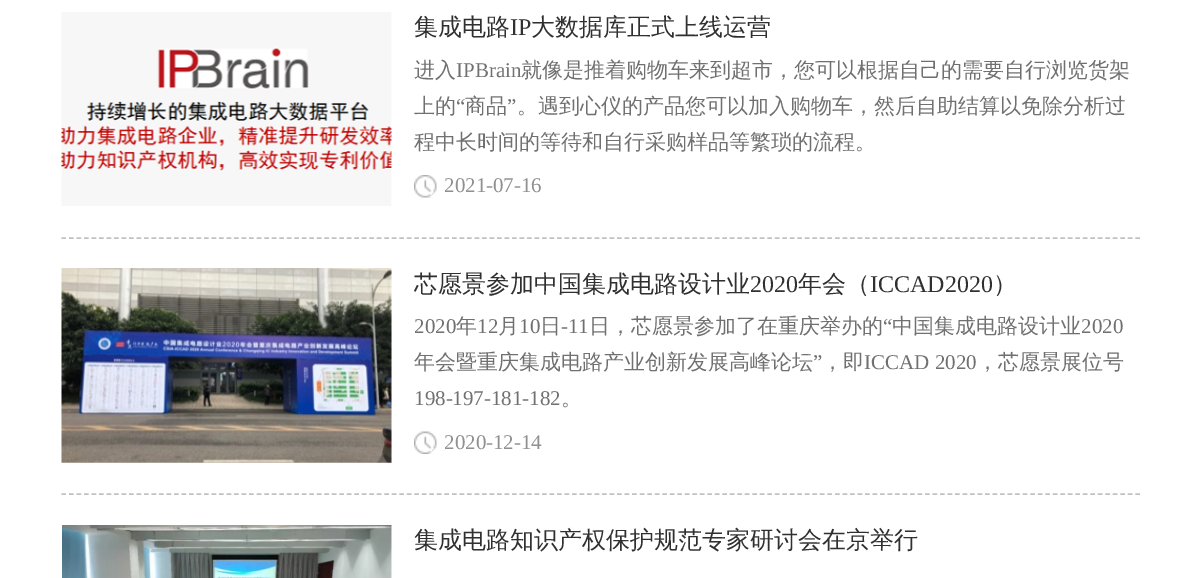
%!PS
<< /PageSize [1203 578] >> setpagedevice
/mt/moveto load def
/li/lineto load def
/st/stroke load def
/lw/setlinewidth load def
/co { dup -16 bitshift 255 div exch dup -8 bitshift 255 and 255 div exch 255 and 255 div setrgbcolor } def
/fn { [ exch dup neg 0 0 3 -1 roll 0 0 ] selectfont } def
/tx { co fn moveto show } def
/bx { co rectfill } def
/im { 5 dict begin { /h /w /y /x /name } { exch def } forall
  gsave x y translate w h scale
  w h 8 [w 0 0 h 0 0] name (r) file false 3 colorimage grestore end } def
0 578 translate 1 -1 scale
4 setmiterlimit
0 0 1203 578 16#FFFFFF bx
16#C1C1C1 co
1.5 lw
[4.5 3.01] 0 setdash
61.5 238 mt 1141.5 238 li st
(media/1.raw) 61 12 331 194 im
(media/2.raw) 414 175 23 23 im
61.5 494 mt 1141.5 494 li st
(media/3.raw) 61 268 331 195 im
(media/4.raw) 414 431 23 23 im
(media/5.raw) 62 525 330 53 im
(集成电路) 414 35 /WenQuanYiZenHei-Medium 24 16#303030 tx
(IP) 510 35 /LiberationSerif-Regular 24 16#303030 tx
(大数据库正式上线运营) 531 35 /WenQuanYiZenHei-Medium 24 16#303030 tx
(进入) 414 77 /WenQuanYiZenHei-Medium 21 16#707070 tx
(IPBrain) 456 77 /LiberationSerif-Regular 21 16#707070 tx
(就像是推着购物车来到超市，您可以根据自己的需要自行浏览货架) 521 77 /WenQuanYiZenHei-Medium 21 16#707070 tx
(上的) 414 113 /WenQuanYiZenHei-Medium 21 16#707070 tx
(“) 456 113 /LiberationSerif-Regular 21 16#707070 tx
(商品) 465 113 /WenQuanYiZenHei-Medium 21 16#707070 tx
(”) 507 113 /LiberationSerif-Regular 21 16#707070 tx
(。遇到心仪的产品您可以加入购物车，然后自助结算以免除分析过) 517 113 /WenQuanYiZenHei-Medium 21 16#707070 tx
(程中长时间的等待和自行采购样品等繁琐的流程。) 414 149 /WenQuanYiZenHei-Medium 21 16#707070 tx
(2021-07-16) 444 192 /LiberationSerif-Regular 21 16#909090 tx
(芯愿景参加中国集成电路设计业) 414 292 /WenQuanYiZenHei-Medium 24 16#303030 tx
(2020) 750 292 /LiberationSerif-Regular 24 16#303030 tx
(年会（) 798 292 /WenQuanYiZenHei-Medium 24 16#303030 tx
(ICCAD2020) 870 292 /LiberationSerif-Regular 24 16#303030 tx
(）) 993 292 /WenQuanYiZenHei-Medium 24 16#303030 tx
(2020) 414 333 /LiberationSerif-Regular 21 16#707070 tx
(年) 456 333 /WenQuanYiZenHei-Medium 21 16#707070 tx
(12) 477 333 /LiberationSerif-Regular 21 16#707070 tx
(月) 498 333 /WenQuanYiZenHei-Medium 21 16#707070 tx
(10) 519 333 /LiberationSerif-Regular 21 16#707070 tx
(日) 540 333 /WenQuanYiZenHei-Medium 21 16#707070 tx
(-11) 561 333 /LiberationSerif-Regular 21 16#707070 tx
(日，芯愿景参加了在重庆举办的) 589 333 /WenQuanYiZenHei-Medium 21 16#707070 tx
(“) 883 333 /LiberationSerif-Regular 21 16#707070 tx
(中国集成电路设计业) 892 333 /WenQuanYiZenHei-Medium 21 16#707070 tx
(2020) 1081 333 /LiberationSerif-Regular 21 16#707070 tx
(年会暨重庆集成电路产业创新发展高峰论坛) 414 369 /WenQuanYiZenHei-Medium 21 16#707070 tx
(”) 813 369 /LiberationSerif-Regular 21 16#707070 tx
(，即) 822 369 /WenQuanYiZenHei-Medium 21 16#707070 tx
(ICCAD 2020) 864 369 /LiberationSerif-Regular 21 16#707070 tx
(，芯愿景展位号) 977 369 /WenQuanYiZenHei-Medium 21 16#707070 tx
(198-197-181-182) 414 405 /LiberationSerif-Regular 21 16#707070 tx
(。) 561 405 /WenQuanYiZenHei-Medium 21 16#707070 tx
(2020-12-14) 444 449 /LiberationSerif-Regular 21 16#909090 tx
(集成电路知识产权保护规范专家研讨会在京举行) 414 548 /WenQuanYiZenHei-Medium 24 16#303030 tx
showpage
